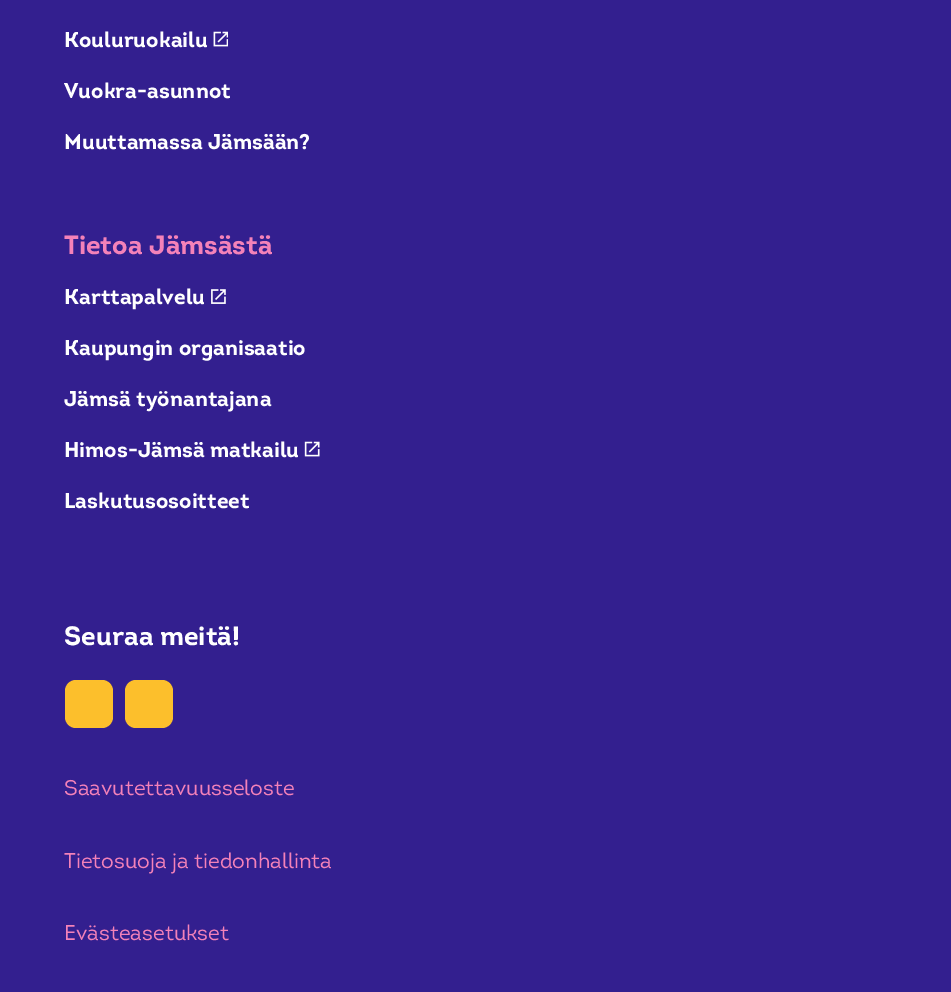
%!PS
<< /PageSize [951 992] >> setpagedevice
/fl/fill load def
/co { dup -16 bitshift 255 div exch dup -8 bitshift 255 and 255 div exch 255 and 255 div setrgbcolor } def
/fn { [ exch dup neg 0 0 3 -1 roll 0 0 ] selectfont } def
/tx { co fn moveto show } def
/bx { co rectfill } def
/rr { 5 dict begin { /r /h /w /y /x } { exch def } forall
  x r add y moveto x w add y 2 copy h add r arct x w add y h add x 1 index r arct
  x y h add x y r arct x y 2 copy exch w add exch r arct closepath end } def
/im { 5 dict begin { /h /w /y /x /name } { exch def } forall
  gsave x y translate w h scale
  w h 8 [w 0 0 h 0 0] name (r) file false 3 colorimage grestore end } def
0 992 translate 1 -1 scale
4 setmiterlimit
0 0 951 992 16#331F8F bx
(media/1.raw) 213 31 15 16 im
(media/2.raw) 211 289 15 15 im
(media/3.raw) 304 441 16 16 im
16#FCBF2C co
65 680 48 48 11 rr fl
125 680 48 48 11 rr fl
(Kouluruokailu) 64 47 /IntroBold-Bold 21.25 16#FFFFFF tx
(Vuokra-asunnot) 64 98 /IntroBold-Bold 21.25 16#FFFFFF tx
(Muuttamassa Jämsään?) 64 149 /IntroBold-Bold 21.25 16#FFFFFF tx
(Tietoa Jämsästä) 64 254 /IntroBold-Bold 26.5 16#F482B9 tx
(Karttapalvelu) 64 304 /IntroBold-Bold 21.25 16#FFFFFF tx
(Kaupungin organisaatio) 64 355 /IntroBold-Bold 21.25 16#FFFFFF tx
(Jämsä työnantajana) 64 406 /IntroBold-Bold 21.25 16#FFFFFF tx
(Himos-Jämsä matkailu) 64 457 /IntroBold-Bold 21.25 16#FFFFFF tx
(Laskutusosoitteet) 64 508 /IntroBold-Bold 21.25 16#FFFFFF tx
(Seuraa meitä!) 64 645 /IntroBold-Bold 26.5 16#FFFFFF tx
(Saavutettavuusseloste) 64 795 /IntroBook-Regular 21.25 16#F482B9 tx
(Tietosuoja ja tiedonhallinta) 64 868 /IntroBook-Regular 21.25 16#F482B9 tx
(Evästeasetukset) 64 940 /IntroBook-Regular 21.25 16#F482B9 tx
showpage
